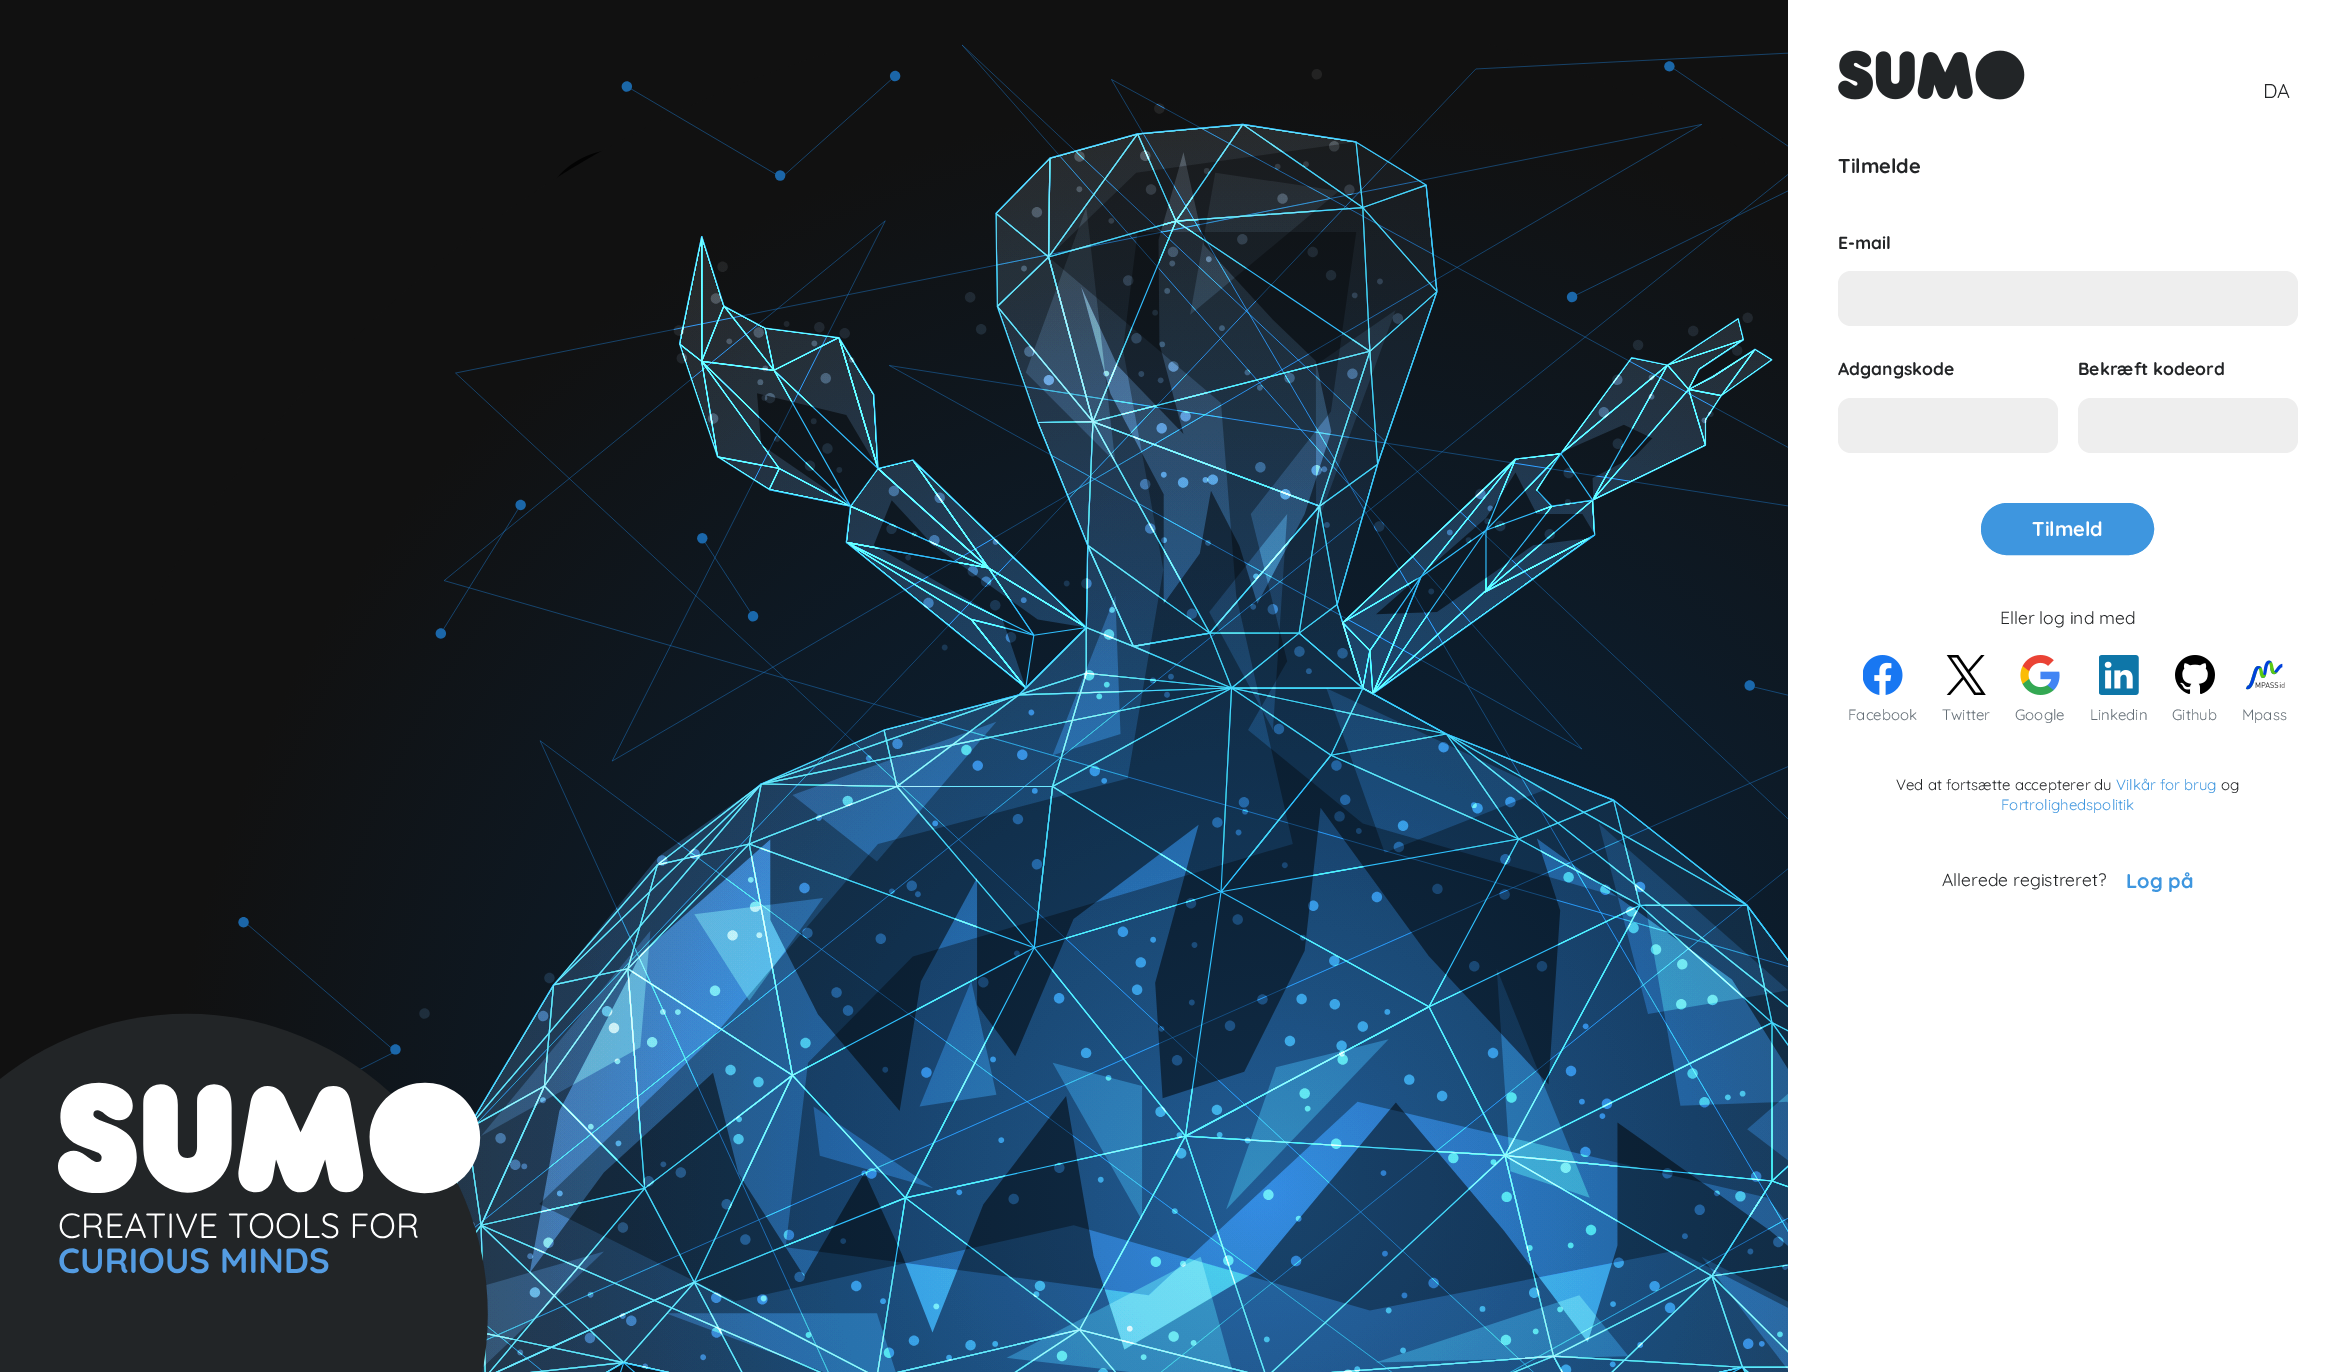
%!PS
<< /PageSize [2347 1372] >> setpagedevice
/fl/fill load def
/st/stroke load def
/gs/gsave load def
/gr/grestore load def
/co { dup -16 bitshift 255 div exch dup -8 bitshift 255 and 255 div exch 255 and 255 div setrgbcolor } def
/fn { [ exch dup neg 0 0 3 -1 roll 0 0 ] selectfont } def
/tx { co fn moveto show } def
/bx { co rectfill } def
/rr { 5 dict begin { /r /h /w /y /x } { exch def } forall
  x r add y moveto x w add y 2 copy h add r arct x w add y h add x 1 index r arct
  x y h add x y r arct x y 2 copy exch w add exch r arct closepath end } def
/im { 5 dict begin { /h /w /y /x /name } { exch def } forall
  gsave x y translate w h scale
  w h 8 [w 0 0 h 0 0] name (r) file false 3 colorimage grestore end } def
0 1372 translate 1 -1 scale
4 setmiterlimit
0 0 2347 1372 16#111111 bx
(media/1.raw) 148 44 1640 1328 im
1788 0 559 1372 16#FFFFFF bx
(media/2.raw) 1838 50 187 50 im
16#EEEEEE co
1838 271 460 55 13 rr fl
1838 398 220 55 13 rr fl
2078 398 220 55 13 rr fl
16#3E96DF co
1981.5 503.5 172 51 25.5 rr gs fl gr
st
(media/3.raw) 1863 655 40 40 im
(media/4.raw) 1946 655 40 40 im
(media/5.raw) 2020 655 40 40 im
(media/6.raw) 2099 655 40 40 im
(media/7.raw) 2175 655 40 39 im
(media/8.raw) 2245 660 40 30 im
(media/9.raw) 0 1013 488 359 im
(DA) 2263 98 /Quicksand-Regular 20 16#232527 tx
(Tilmelde) 1838 173 /Quicksand-Bold 20 16#232527 tx
(E-mail) 1838 249 /Quicksand-Bold 17.5 16#232527 tx
(Adgangskode) 1838 375 /Quicksand-Bold 17.5 16#232527 tx
(Bekræft kodeord) 2078 375 /Quicksand-Bold 17.5 16#232527 tx
(Tilmeld) 2032 536 /Quicksand-Bold 20 16#FFFFFF tx
(Eller log ind med) 2000 624 /Quicksand-Regular 17.5 16#232527 tx
(Facebook) 1848 720 /Quicksand-Regular 15 16#646E76 tx
(Twitter) 1942 720 /Quicksand-Regular 15 16#646E76 tx
(Google) 2015 720 /Quicksand-Regular 15 16#646E76 tx
(Linkedin) 2090 720 /Quicksand-Regular 15 16#646E76 tx
(Github) 2172 720 /Quicksand-Regular 15 16#646E76 tx
(Mpass) 2242 720 /Quicksand-Regular 15 16#646E76 tx
(Ved at fortsætte accepterer du) 1896 790 /Quicksand-Regular 15 16#232527 tx
(Vilkår for brug) 2116 790 /Quicksand-Regular 15 16#3E96DF tx
(og) 2221 790 /Quicksand-Regular 15 16#232527 tx
(Fortrolighedspolitik) 2001 810 /Quicksand-Regular 15 16#3E96DF tx
(Allerede registreret?) 1942 886 /Quicksand-Regular 17.5 16#232527 tx
(Log på) 2126 888 /Quicksand-Bold 20 16#3E96DF tx
showpage
